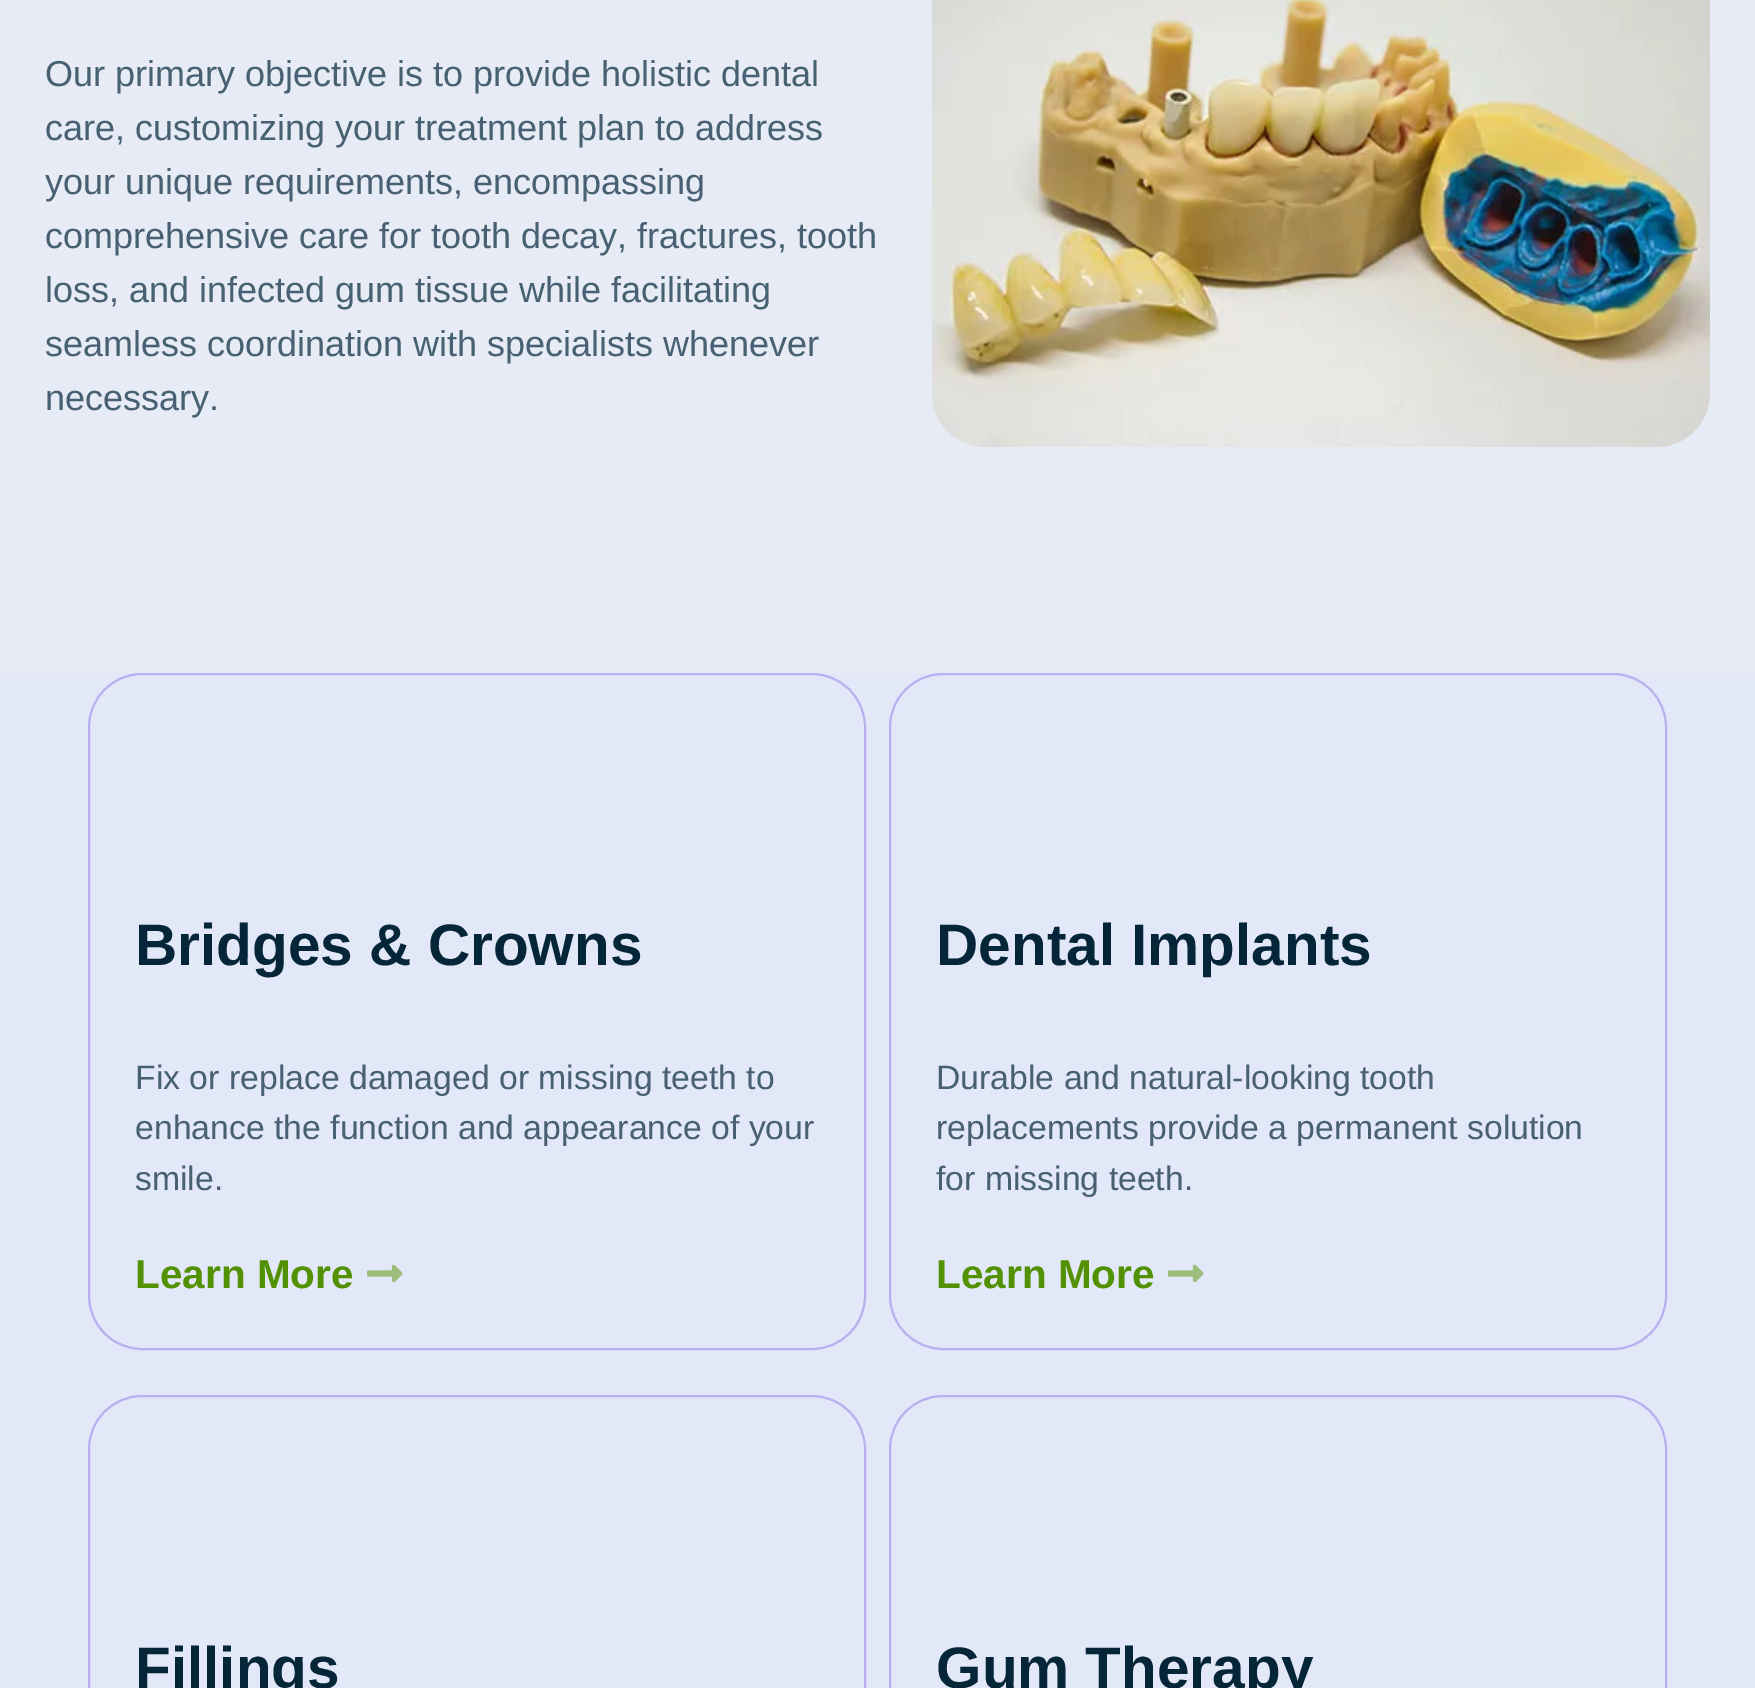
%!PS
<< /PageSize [1755 1688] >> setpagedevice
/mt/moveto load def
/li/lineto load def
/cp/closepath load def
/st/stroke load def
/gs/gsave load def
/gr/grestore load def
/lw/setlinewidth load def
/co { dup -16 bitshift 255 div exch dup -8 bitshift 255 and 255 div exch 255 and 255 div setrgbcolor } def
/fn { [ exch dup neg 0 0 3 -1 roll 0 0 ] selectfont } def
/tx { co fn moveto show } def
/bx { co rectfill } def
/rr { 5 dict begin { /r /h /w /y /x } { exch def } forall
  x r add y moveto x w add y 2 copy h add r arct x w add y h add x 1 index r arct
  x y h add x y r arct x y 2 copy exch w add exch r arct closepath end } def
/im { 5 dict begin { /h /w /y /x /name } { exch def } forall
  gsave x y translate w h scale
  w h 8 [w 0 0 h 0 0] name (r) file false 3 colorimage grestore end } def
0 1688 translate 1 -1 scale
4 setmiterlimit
0 0 1755 1688 16#E6EBF6 bx
(media/1.raw) 931 0 779 447 im
gs 0 673 mt 1755 673 li 1755 1688 li 0 1688 li cp clip newpath
<< /ShadingType 2 /ColorSpace /DeviceRGB /Coords [877 673 878 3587] /Extend [true true] /Function << /FunctionType 3 /Domain [0 1] /Functions [<< /FunctionType 2 /Domain [0 1] /C0 [.886 .91 .973] /C1 [.886 .91 .973] /N 1 >> << /FunctionType 2 /Domain [0 1] /C0 [.886 .91 .973] /C1 [.863 .918 .929] /N 1 >> << /FunctionType 2 /Domain [0 1] /C0 [.863 .918 .929] /C1 [.863 .918 .929] /N 1 >>] /Bounds [.57 .8] /Encode [0 1 0 1 0 1] >> >> shfill gr
16#BBB0EF co
2 lw
89 674 776 675 53 rr st
(media/2.raw) 367 1264 36 19 im
890 674 776 675 53 rr st
(media/2.raw) 1168 1264 36 19 im
89 1396 776 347 53 rr st
890 1396 776 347 53 rr st
(Our primary objective is to provide holistic dental) 45 86 /LiberationSans-Regular 36 16#486172 tx
(care, customizing your treatment plan to address) 45 140 /LiberationSans-Regular 36 16#486172 tx
(your unique requirements, encompassing) 45 194 /LiberationSans-Regular 36 16#486172 tx
(comprehensive care for tooth decay, fractures, tooth) 45 248 /LiberationSans-Regular 36 16#486172 tx
(loss, and infected gum tissue while facilitating) 45 302 /LiberationSans-Regular 36 16#486172 tx
(seamless coordination with specialists whenever) 45 356 /LiberationSans-Regular 36 16#486172 tx
(necessary.) 45 410 /LiberationSans-Regular 36 16#486172 tx
(Bridges & Crowns) 135 965 /LiberationSans-Bold 58.5 16#052639 tx
(Fix or replace damaged or missing teeth to) 135 1089 /LiberationSans-Regular 33.75 16#486172 tx
(enhance the function and appearance of your) 135 1139 /LiberationSans-Regular 33.75 16#486172 tx
(smile.) 135 1190 /LiberationSans-Regular 33.75 16#486172 tx
(Learn More) 135 1288 /LiberationSans-Bold 40.5 16#529102 tx
(Dental Implants) 936 965 /LiberationSans-Bold 58.5 16#052639 tx
(Durable and natural-looking tooth) 936 1089 /LiberationSans-Regular 33.75 16#486172 tx
(replacements provide a permanent solution) 936 1139 /LiberationSans-Regular 33.75 16#486172 tx
(for missing teeth.) 936 1190 /LiberationSans-Regular 33.75 16#486172 tx
(Learn More) 936 1288 /LiberationSans-Bold 40.5 16#529102 tx
(Fillings) 135 1688 /LiberationSans-Bold 58.5 16#052639 tx
(Gum Therapy) 936 1688 /LiberationSans-Bold 58.5 16#052639 tx
showpage
